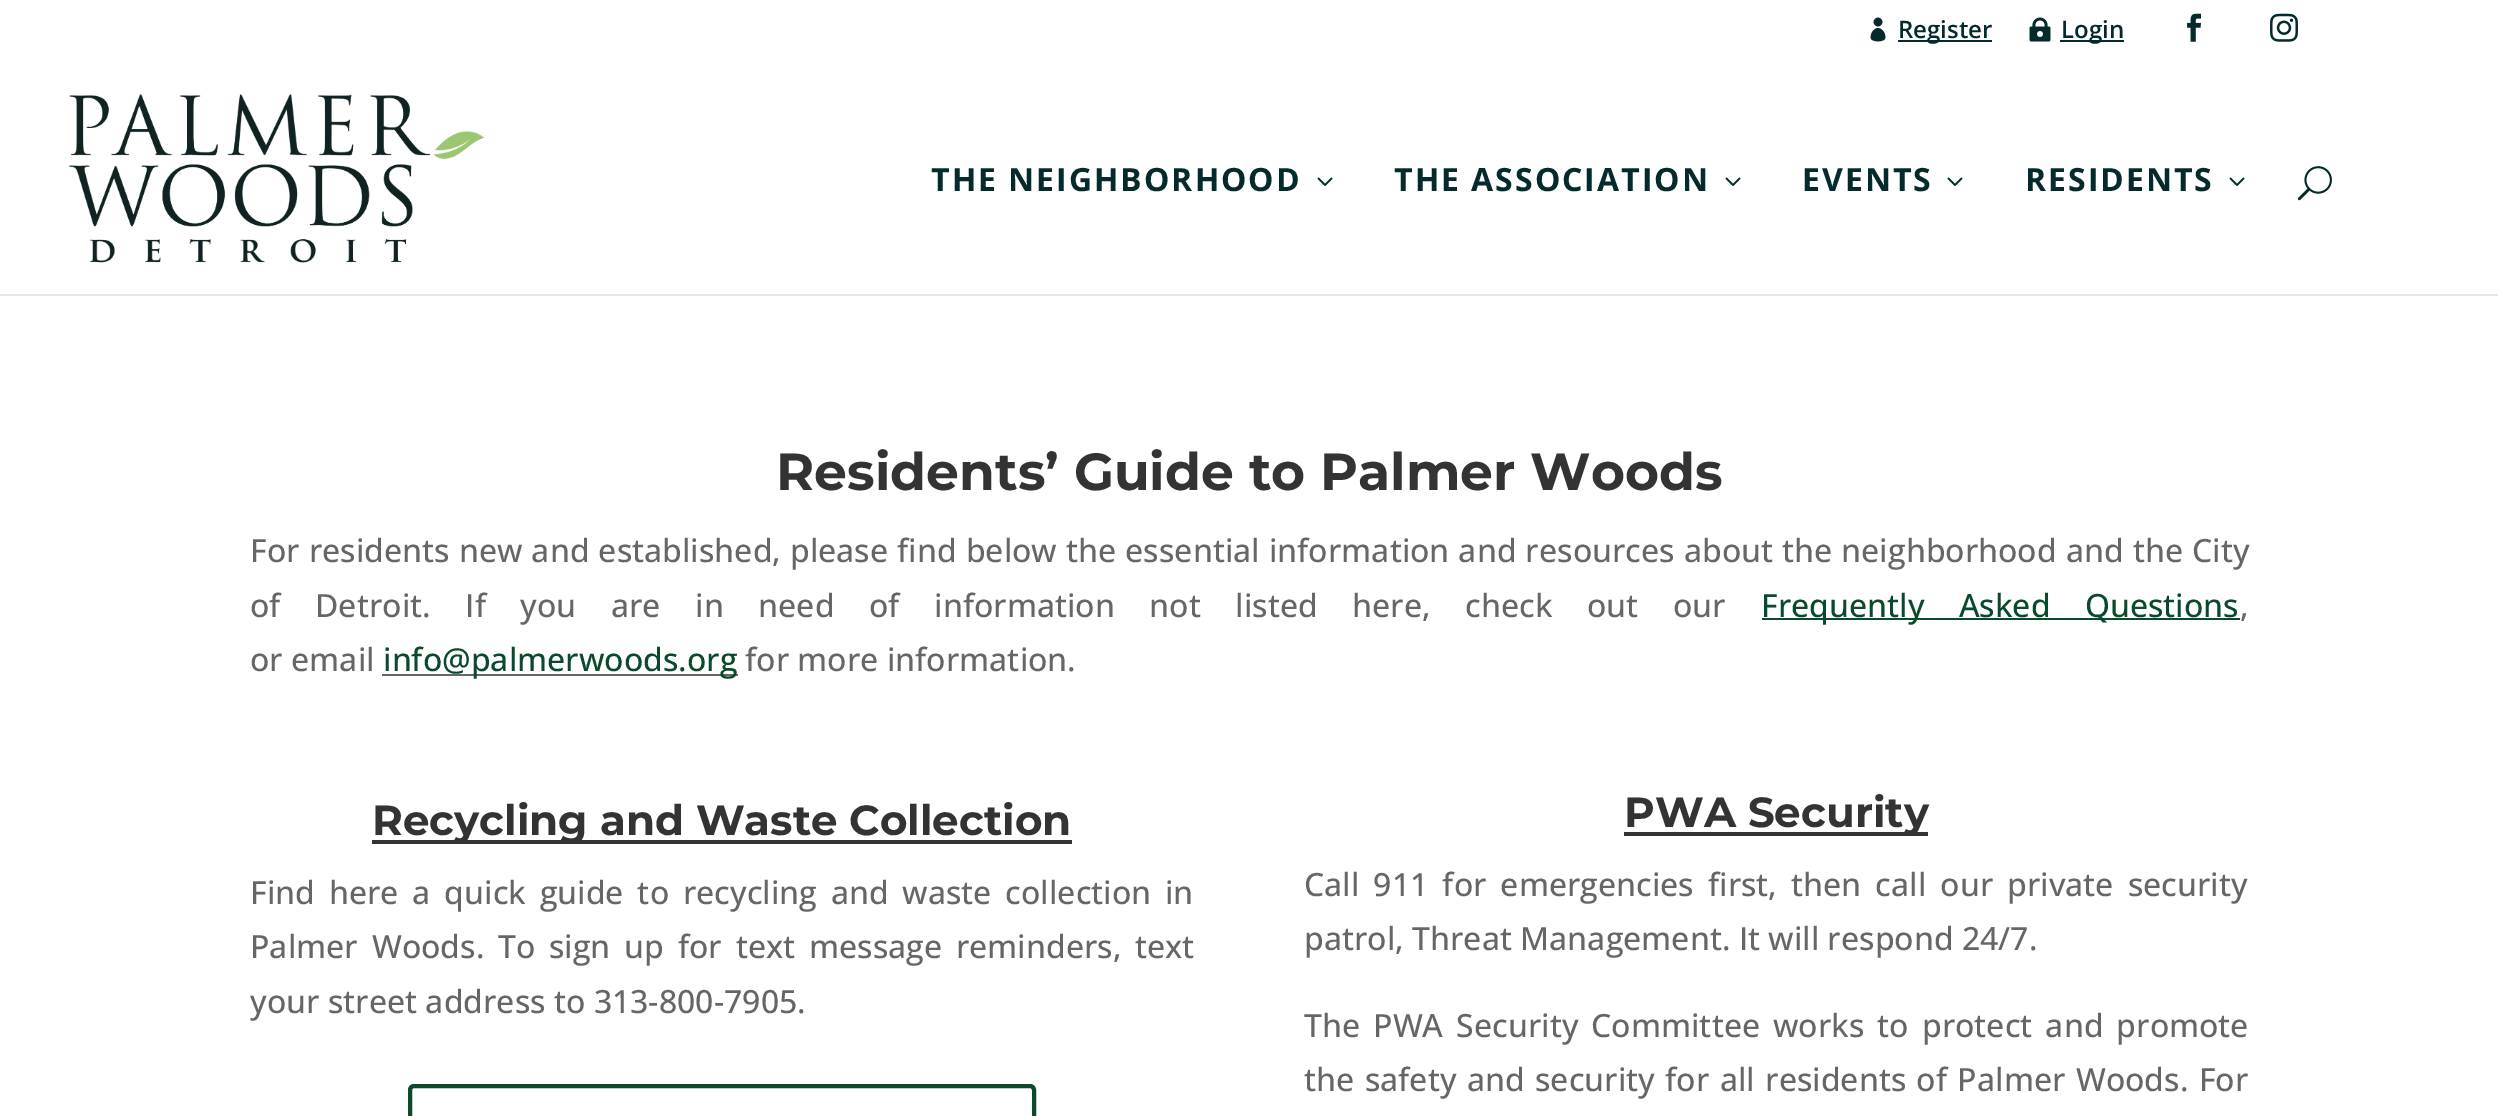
%!PS
<< /PageSize [2498 1116] >> setpagedevice
/mt/moveto load def
/st/stroke load def
/lw/setlinewidth load def
/co { dup -16 bitshift 255 div exch dup -8 bitshift 255 and 255 div exch 255 and 255 div setrgbcolor } def
/fn { [ exch dup neg 0 0 3 -1 roll 0 0 ] selectfont } def
/tx { co fn moveto show } def
/bx { co rectfill } def
/rr { 5 dict begin { /r /h /w /y /x } { exch def } forall
  x r add y moveto x w add y 2 copy h add r arct x w add y h add x 1 index r arct
  x y h add x y r arct x y 2 copy exch w add exch r arct closepath end } def
/im { 5 dict begin { /h /w /y /x /name } { exch def } forall
  gsave x y translate w h scale
  w h 8 [w 0 0 h 0 0] name (r) file false 3 colorimage grestore end } def
0 1116 translate 1 -1 scale
4 setmiterlimit
0 0 2498 1116 16#FFFFFF bx
(media/1.raw) 1870 17 16 25 im
1898 40 94 2 16#042A2B bx
(media/2.raw) 2029 17 22 25 im
2060 40 64 2 16#042A2B bx
(media/3.raw) 2187 13 15 29 im
(media/4.raw) 2270 13 28 29 im
0 294 2498 2 16#E6E6E6 bx
(media/5.raw) 68 94 417 169 im
(media/6.raw) 1317 177 16 9 im
(media/6.raw) 1725 177 16 9 im
(media/6.raw) 1947 177 16 9 im
(media/6.raw) 2229 177 16 9 im
(media/7.raw) 2297 166 35 35 im
1762 618 478 2 16#084A29 bx
382 674 356 2 16#666666 bx
372 840 700 4 16#333333 bx
16#084A29 co
4 lw
410 1086 624 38 4 rr st
1624 832 304 4 16#333333 bx
(Register) 1898 38 /OpenSans-SemiBold 24 16#042A2B tx
(Login) 2061 38 /OpenSans-SemiBold 24 16#042A2B tx
/OpenSans-Bold 32 fn
931 191 mt 2 0 (THE NEIGHBORHOOD) ashow
1394 191 mt 2 0 (THE ASSOCIATION) ashow
1802 191 mt 2 0 (EVENTS) ashow
2025 191 mt 2 0 (RESIDENTS) ashow
(Residents’ Guide to Palmer Woods) 776 490 /Montserrat-Bold 52 16#333333 tx
/OpenSans-Medium 32 fn
16#666666 co
250 562 mt .75 0 32 (For residents new and established, please find below the essential information and resources about the neighborhood and the City) widthshow
250 617 mt 26.25 0 32 (of Detroit. If you are in need of information not listed here, check out our) widthshow
16#084A29 co
1761 617 mt 26 0 32 (Frequently Asked Questions) widthshow
(,) 2240 617 /OpenSans-Medium 32 16#666666 tx
(or email) 250 671 /OpenSans-Medium 32 16#666666 tx
(info@palmerwoods.org) 383 671 /OpenSans-Medium 32 16#084A29 tx
(for more information.) 745 671 /OpenSans-Medium 32 16#666666 tx
(Recycling and Waste Collection) 372 835 /Montserrat-Bold 42 16#333333 tx
/OpenSans-Medium 32 fn
16#666666 co
250 904 mt 5.5 0 32 (Find here a quick guide to recycling and waste collection in) widthshow
250 958 mt 5.5 0 32 (Palmer Woods. To sign up for text message reminders, text) widthshow
(your street address to 313-800-7905.) 250 1013 /OpenSans-Medium 32 16#666666 tx
(PWA Security) 1624 827 /Montserrat-Bold 42 16#333333 tx
/OpenSans-Medium 32 fn
16#666666 co
1304 896 mt 5.75 0 32 (Call 911 for emergencies first, then call our private security) widthshow
(patrol, Threat Management. It will respond 24/7.) 1304 950 /OpenSans-Medium 32 16#666666 tx
1304 1037 mt 4.75 0 32 (The PWA Security Committee works to protect and promote) widthshow
1304 1091 mt 2.1 0 32 (the safety and security for all residents of Palmer Woods. For) widthshow
showpage
